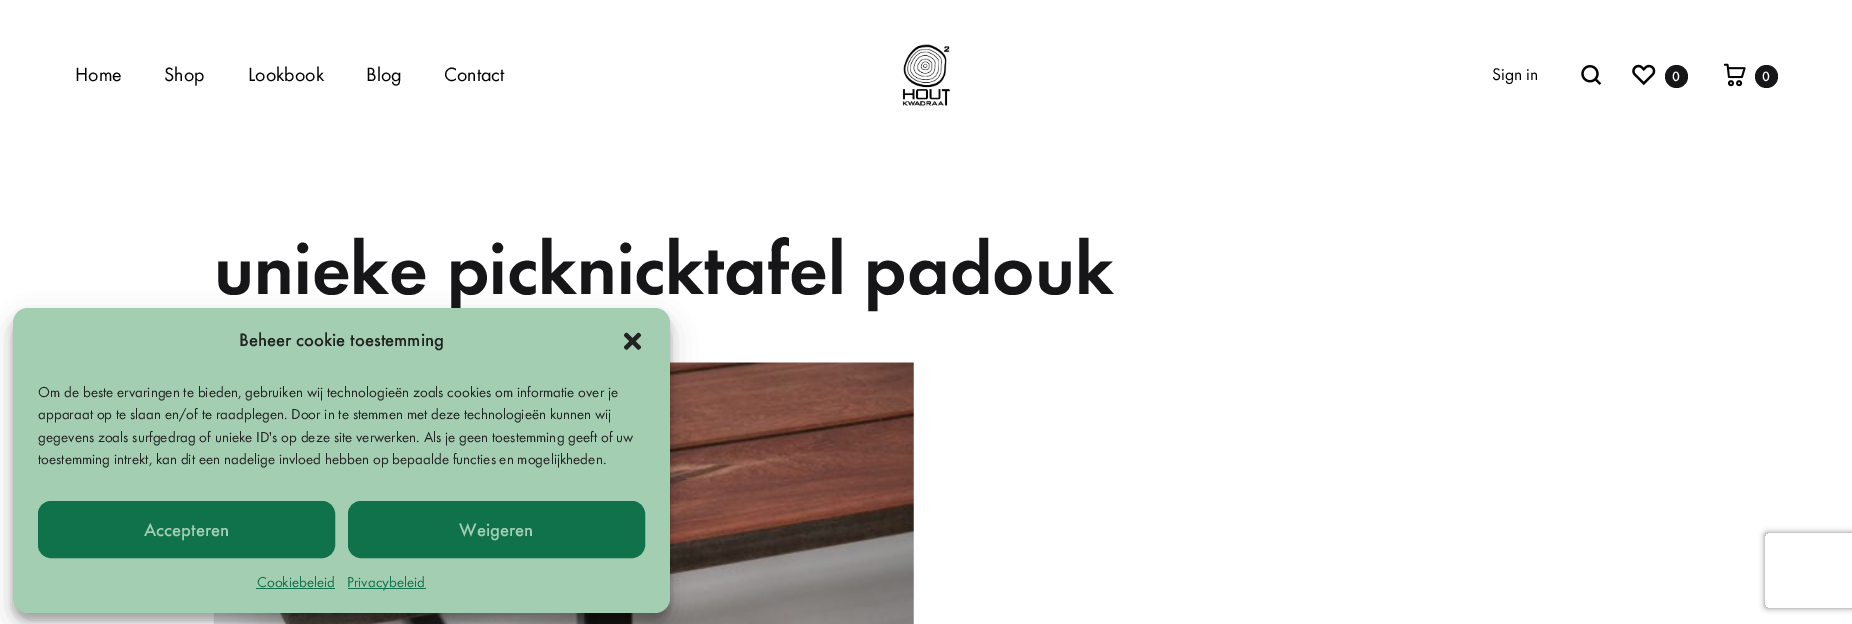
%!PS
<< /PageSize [1852 624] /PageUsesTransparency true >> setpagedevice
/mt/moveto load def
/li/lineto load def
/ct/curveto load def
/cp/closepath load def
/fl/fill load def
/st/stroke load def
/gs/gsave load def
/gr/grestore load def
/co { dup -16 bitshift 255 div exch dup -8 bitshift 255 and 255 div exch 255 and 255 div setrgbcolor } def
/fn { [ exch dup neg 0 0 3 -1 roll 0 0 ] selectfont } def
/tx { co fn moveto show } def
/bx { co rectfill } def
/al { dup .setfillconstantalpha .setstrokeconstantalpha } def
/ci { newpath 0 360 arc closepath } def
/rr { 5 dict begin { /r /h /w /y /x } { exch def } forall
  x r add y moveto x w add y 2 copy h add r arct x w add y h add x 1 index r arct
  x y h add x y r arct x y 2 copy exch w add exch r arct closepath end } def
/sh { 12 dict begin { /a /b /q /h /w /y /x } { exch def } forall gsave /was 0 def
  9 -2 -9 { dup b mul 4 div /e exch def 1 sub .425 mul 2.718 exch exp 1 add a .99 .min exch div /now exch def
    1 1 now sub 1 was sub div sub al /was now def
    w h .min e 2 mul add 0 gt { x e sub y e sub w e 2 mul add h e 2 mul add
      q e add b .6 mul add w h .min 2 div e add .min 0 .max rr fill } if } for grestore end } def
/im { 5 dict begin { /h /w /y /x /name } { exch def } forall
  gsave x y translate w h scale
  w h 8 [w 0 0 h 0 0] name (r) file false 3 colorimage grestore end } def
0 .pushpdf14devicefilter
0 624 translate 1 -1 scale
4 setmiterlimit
0 0 1852 624 16#FFFFFF bx
(media/1.raw) 902 44 49 62 im
(media/2.raw) 1581 65 21 20 im
(media/3.raw) 1632 64 24 22 im
16#161619 co
1676.5 76.5 11.5 ci fl
(media/4.raw) 1723 63 23 24 im
1766.5 76.5 11.5 ci fl
(media/5.raw) 213 362 701 262 im
16#000000 co
13 315 657 305 15 4 .23 sh
13 320 657 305 15 12.5 .19 sh
gs
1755 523 mt 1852 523 li 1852 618 li 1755 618 li cp 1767.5 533 mt 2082.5 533 li 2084 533 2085 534 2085 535.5 ct 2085 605.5 li 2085 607 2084 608 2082.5 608 ct 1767.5 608 li 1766 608 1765 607 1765 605.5 ct 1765 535.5 li 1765 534 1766 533 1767.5 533 ct cp eoclip newpath
16#808080 co
1765 533 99 75 2.5 3 1 sh
gr
(Home) 75 81 /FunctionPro-Regular 20 16#000000 tx
(Shop) 164 81 /FunctionPro-Regular 20 16#000000 tx
(Lookbook) 248 81 /FunctionPro-Regular 20 16#000000 tx
(Blog) 366 81 /FunctionPro-Regular 20 16#000000 tx
(Contact) 444 81 /FunctionPro-Regular 20 16#000000 tx
(Sign in) 1492 80 /FunctionPro-Regular 17.5 16#000000 tx
(0) 1672 81 /FunctionPro-Medium 14 16#FFFFFF tx
(0) 1762 81 /FunctionPro-Medium 14 16#FFFFFF tx
(unieke picknicktafel padouk) 214 294 /FunctionPro-SemiBold 75 16#161619 tx
16#A3CEB2 co
13 308 657 305 15 rr fl
(Beheer cookie toestemming) 239 346 /FunctionPro-Medium 18.75 16#222222 tx
(media/6.raw) 623 332 19 18 im
(Om de beste ervaringen te bieden, gebruiken wij technologieën zoals cookies om informatie over je) 38 397 /FunctionPro-Regular 15 16#222222 tx
(apparaat op te slaan en/of te raadplegen. Door in te stemmen met deze technologieën kunnen wij) 38 419 /FunctionPro-Regular 15 16#222222 tx
(gegevens zoals surfgedrag of unieke ID's op deze site verwerken. Als je geen toestemming geeft of uw) 38 442 /FunctionPro-Regular 15 16#222222 tx
(toestemming intrekt, kan dit een nadelige invloed hebben op bepaalde functies en mogelijkheden.) 38 464 /FunctionPro-Regular 15 16#222222 tx
16#10724B co
38.5 501.5 296 56 12.5 rr gs fl gr
st
(Accepteren) 144 536 /FunctionPro-Medium 18.75 16#A3CEB2 tx
16#10724B co
348.5 501.5 296 56 12.5 rr gs fl gr
st
(Weigeren) 459 536 /FunctionPro-Medium 18.75 16#A3CEB2 tx
(Cookiebeleid) 257 587 /FunctionPro-Regular 15 16#10724B tx
256 588 79 1 16#10724B bx
348 588 78 1 16#10724B bx
(Privacybeleid) 347 587 /FunctionPro-Regular 15 16#10724B tx
.poppdf14devicefilter showpage
